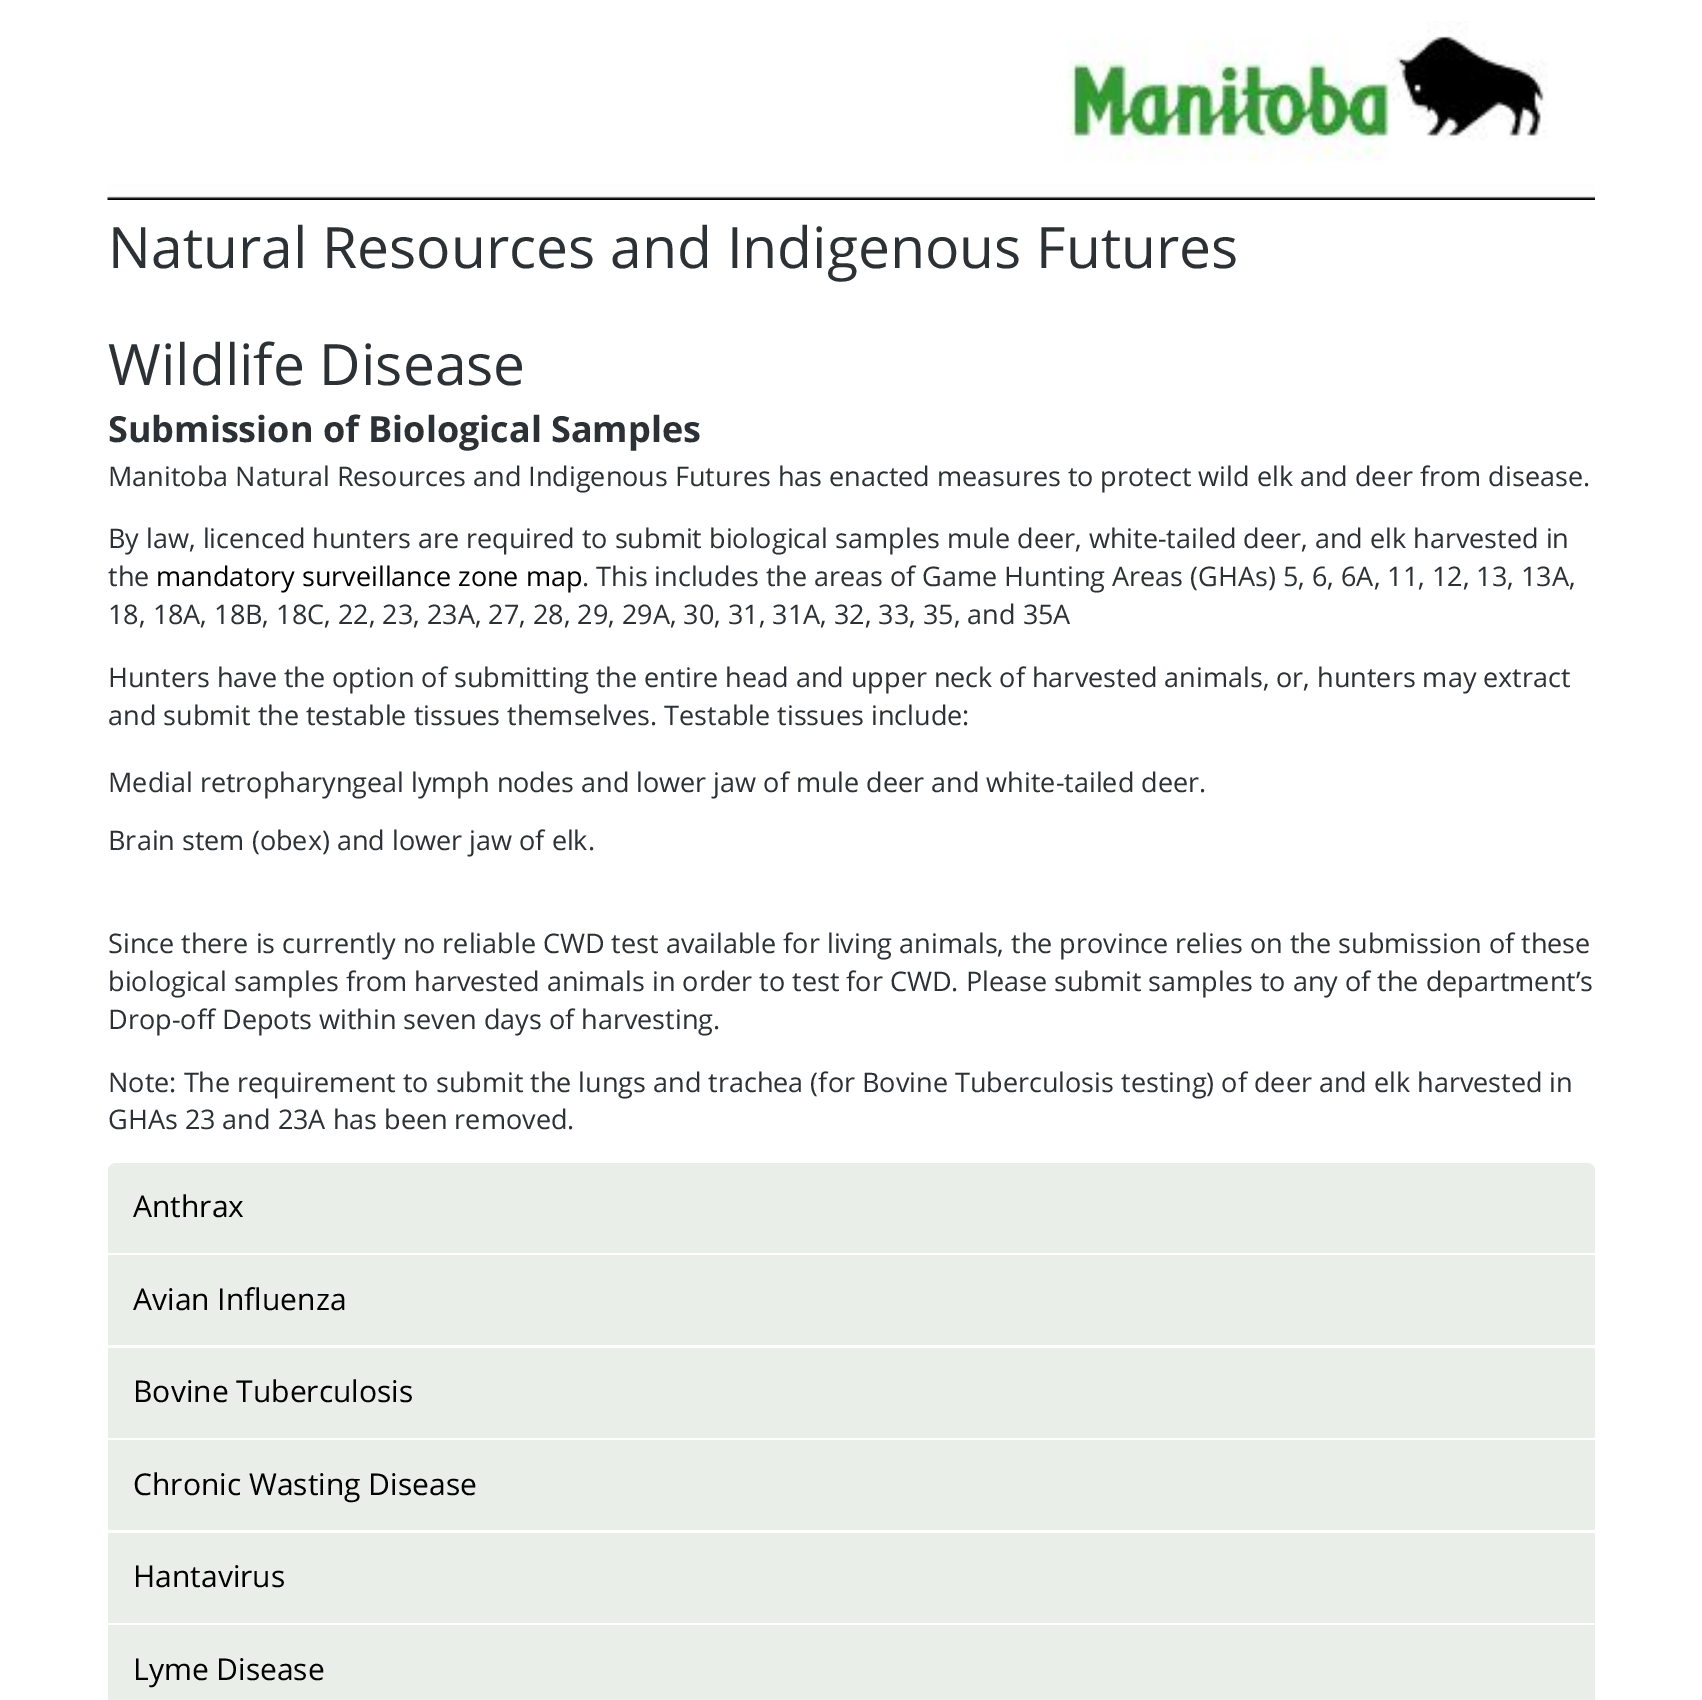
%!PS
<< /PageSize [1702 1700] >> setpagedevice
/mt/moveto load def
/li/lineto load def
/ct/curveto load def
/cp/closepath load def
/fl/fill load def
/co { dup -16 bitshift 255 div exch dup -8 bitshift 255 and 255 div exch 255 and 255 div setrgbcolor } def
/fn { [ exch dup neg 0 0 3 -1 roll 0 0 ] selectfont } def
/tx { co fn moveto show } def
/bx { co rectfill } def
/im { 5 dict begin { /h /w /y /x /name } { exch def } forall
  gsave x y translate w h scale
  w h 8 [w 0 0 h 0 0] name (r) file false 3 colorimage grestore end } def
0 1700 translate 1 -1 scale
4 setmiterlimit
0 0 1702 1700 16#FFFFFF bx
(media/1.raw) 107 21 1488 179 im
16#EAEEE8 co
116 1163 mt 1587 1163 li 1591.5 1163 1595 1166.5 1595 1171 ct 1595 1255 li 108 1255 li 108 1171 li 108 1166.5 111.5 1163 116 1163 ct cp fl
108 1253 1487 2 16#FFFFFF bx
108 1255 1487 90 16#EAEEE8 bx
108 1348 1487 90 16#EAEEE8 bx
108 1440 1487 90 16#EAEEE8 bx
108 1533 1487 90 16#EAEEE8 bx
108 1625 1487 75 16#EAEEE8 bx
(Natural Resources and Indigenous Futures) 108 268 /OpenSans-Regular 57 16#2C3135 tx
(Wildlife Disease) 108 385 /OpenSans-Regular 57 16#2C3135 tx
(Submission of Biological Samples) 108 442 /OpenSans-Bold 36 16#2C3135 tx
(Manitoba Natural Resources and Indigenous Futures has enacted measures to protect wild elk and deer from disease.) 108 486 /OpenSans-Regular 27 16#2C3135 tx
(By law, licenced hunters are required to submit biological samples mule deer, white-tailed deer, and elk harvested in) 108 548 /OpenSans-Regular 27 16#2C3135 tx
(the) 108 586 /OpenSans-Regular 27 16#2C3135 tx
(mandatory surveillance zone map) 156 586 /OpenSans-Regular 27 16#000000 tx
(. This includes the areas of Game Hunting Areas \(GHAs\) 5, 6, 6A, 11, 12, 13, 13A,) 582 586 /OpenSans-Regular 27 16#2C3135 tx
(18, 18A, 18B, 18C, 22, 23, 23A, 27, 28, 29, 29A, 30, 31, 31A, 32, 33, 35, and 35A) 108 624 /OpenSans-Regular 27 16#2C3135 tx
(Hunters have the option of submitting the entire head and upper neck of harvested animals, or, hunters may extract) 108 687 /OpenSans-Regular 27 16#2C3135 tx
(and submit the testable tissues themselves. Testable tissues include:) 108 725 /OpenSans-Regular 27 16#2C3135 tx
(Medial retropharyngeal lymph nodes and lower jaw of mule deer and white-tailed deer.) 108 792 /OpenSans-Regular 27 16#2C3135 tx
(Brain stem \(obex\) and lower jaw of elk.) 108 850 /OpenSans-Regular 27 16#2C3135 tx
(Since there is currently no reliable CWD test available for living animals, the province relies on the submission of these) 108 953 /OpenSans-Regular 27 16#2C3135 tx
(biological samples from harvested animals in order to test for CWD. Please submit samples to any of the department’s) 108 991 /OpenSans-Regular 27 16#2C3135 tx
(Drop-off Depots within seven days of harvesting.) 108 1029 /OpenSans-Regular 27 16#2C3135 tx
(Note: The requirement to submit the lungs and trachea \(for Bovine Tuberculosis testing\) of deer and elk harvested in) 108 1092 /OpenSans-Regular 27 16#2C3135 tx
(GHAs 23 and 23A has been removed.) 108 1129 /OpenSans-Regular 27 16#2C3135 tx
(Anthrax) 133 1217 /OpenSans-Regular 30 16#000000 tx
(Avian Influenza) 133 1310 /OpenSans-Regular 30 16#000000 tx
(Bovine Tuberculosis) 133 1402 /OpenSans-Regular 30 16#000000 tx
(Chronic Wasting Disease) 133 1495 /OpenSans-Regular 30 16#000000 tx
(Hantavirus) 133 1587 /OpenSans-Regular 30 16#000000 tx
(Lyme Disease) 133 1680 /OpenSans-Regular 30 16#000000 tx
showpage
